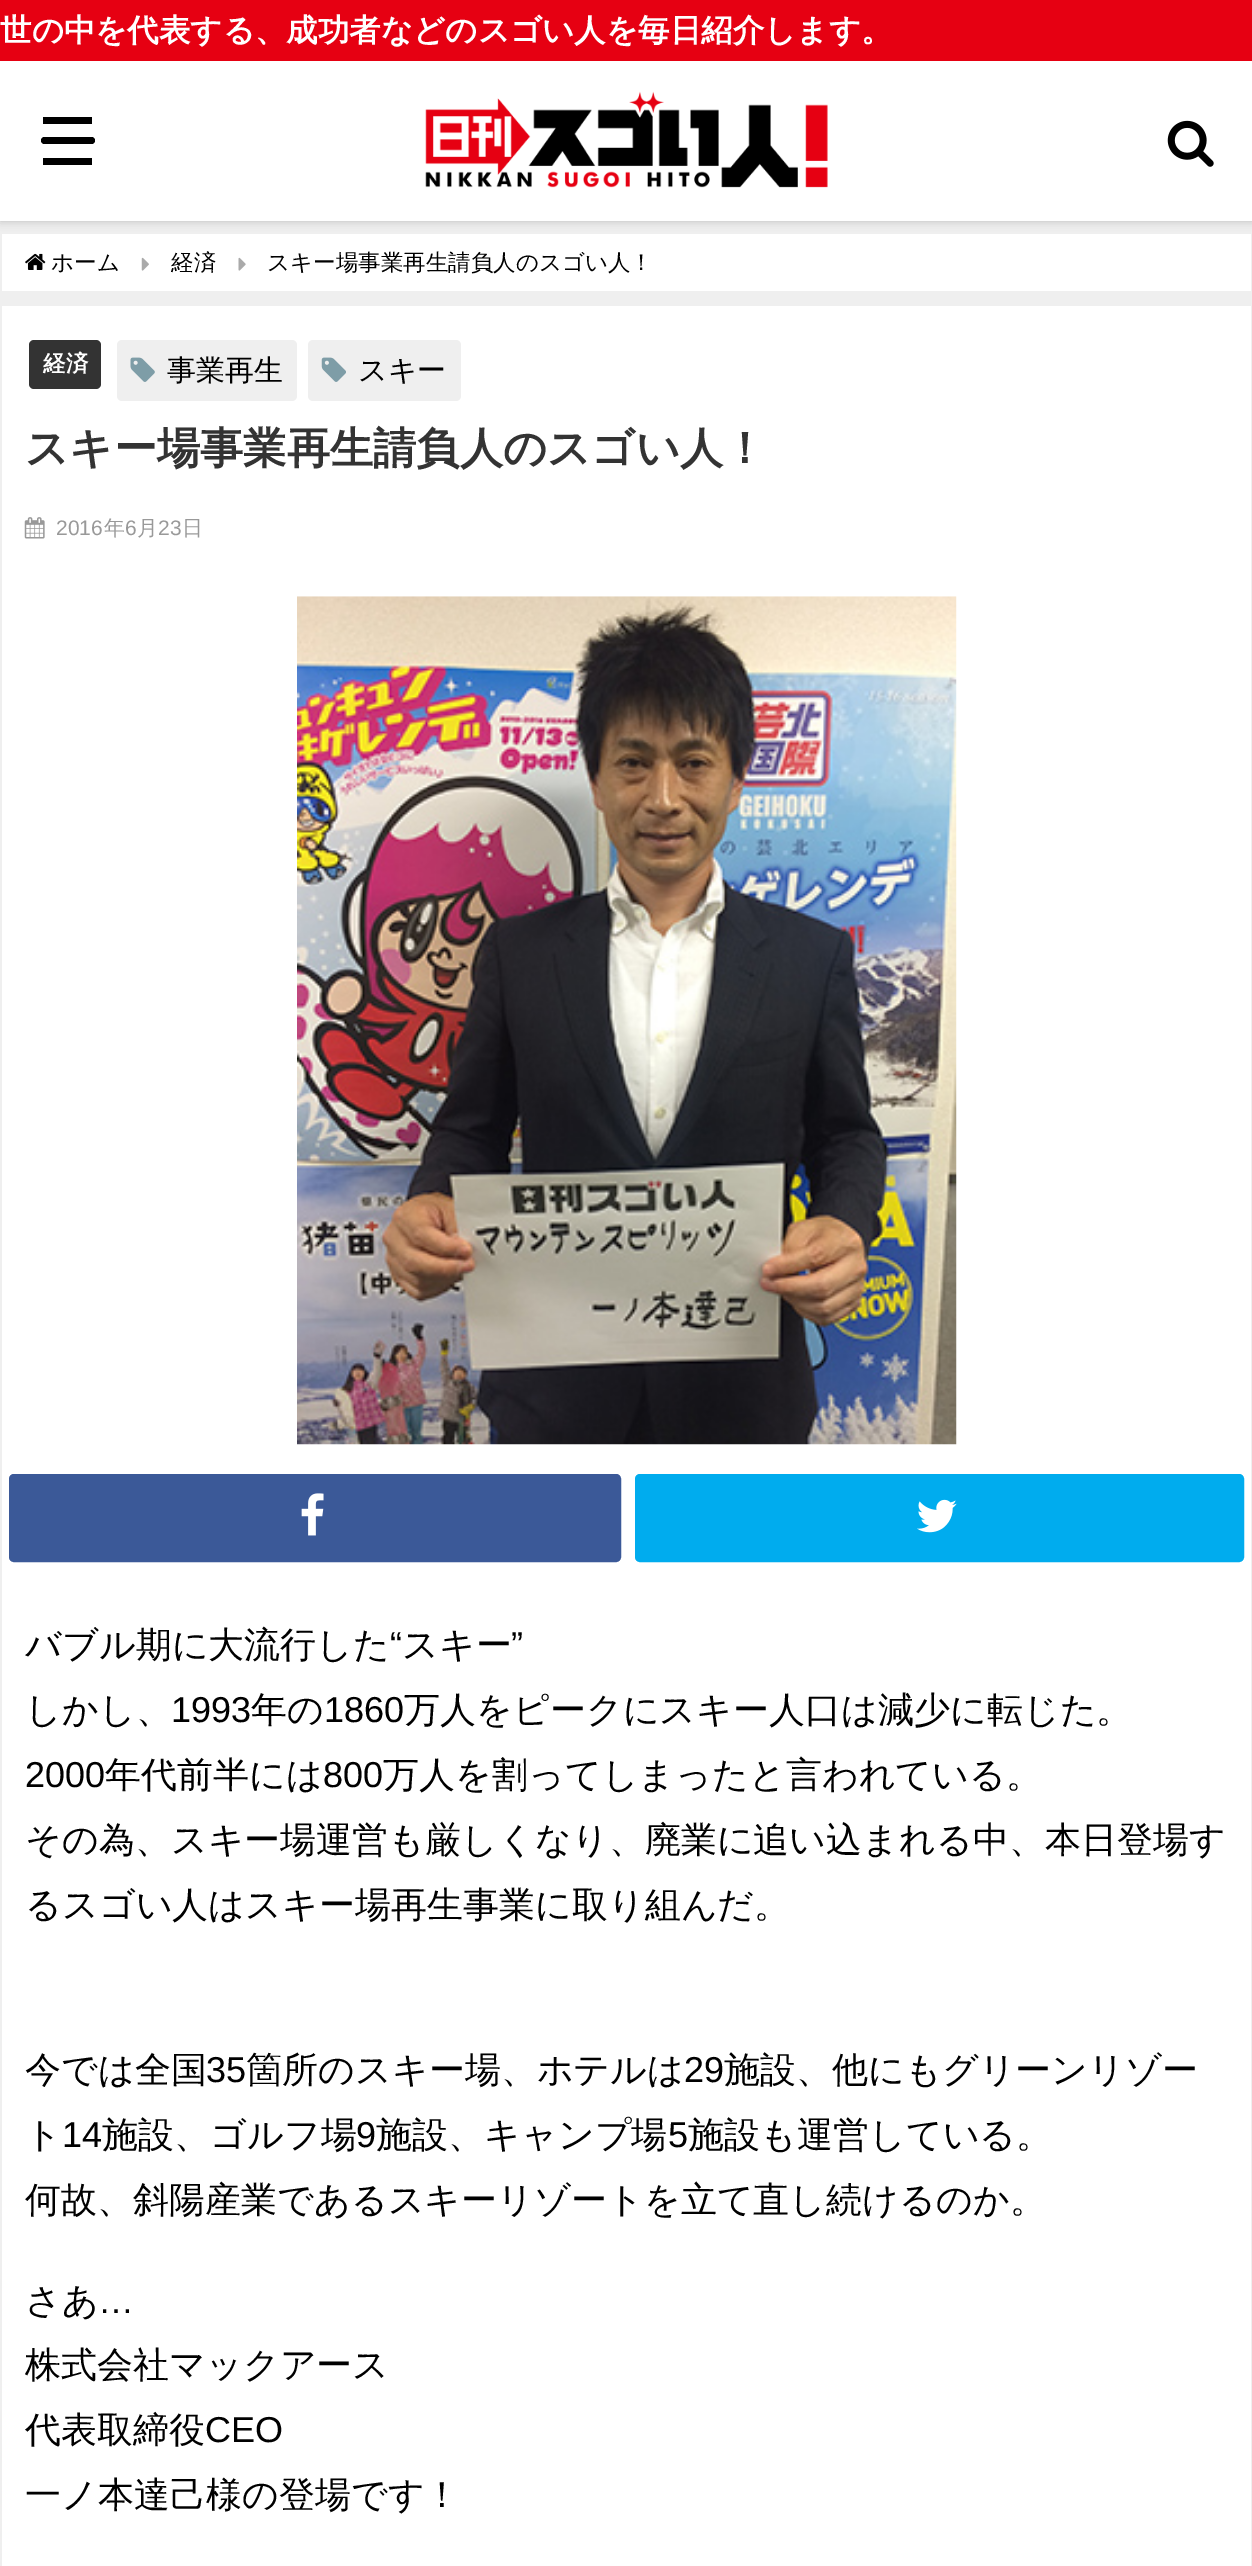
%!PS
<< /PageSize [1252 2566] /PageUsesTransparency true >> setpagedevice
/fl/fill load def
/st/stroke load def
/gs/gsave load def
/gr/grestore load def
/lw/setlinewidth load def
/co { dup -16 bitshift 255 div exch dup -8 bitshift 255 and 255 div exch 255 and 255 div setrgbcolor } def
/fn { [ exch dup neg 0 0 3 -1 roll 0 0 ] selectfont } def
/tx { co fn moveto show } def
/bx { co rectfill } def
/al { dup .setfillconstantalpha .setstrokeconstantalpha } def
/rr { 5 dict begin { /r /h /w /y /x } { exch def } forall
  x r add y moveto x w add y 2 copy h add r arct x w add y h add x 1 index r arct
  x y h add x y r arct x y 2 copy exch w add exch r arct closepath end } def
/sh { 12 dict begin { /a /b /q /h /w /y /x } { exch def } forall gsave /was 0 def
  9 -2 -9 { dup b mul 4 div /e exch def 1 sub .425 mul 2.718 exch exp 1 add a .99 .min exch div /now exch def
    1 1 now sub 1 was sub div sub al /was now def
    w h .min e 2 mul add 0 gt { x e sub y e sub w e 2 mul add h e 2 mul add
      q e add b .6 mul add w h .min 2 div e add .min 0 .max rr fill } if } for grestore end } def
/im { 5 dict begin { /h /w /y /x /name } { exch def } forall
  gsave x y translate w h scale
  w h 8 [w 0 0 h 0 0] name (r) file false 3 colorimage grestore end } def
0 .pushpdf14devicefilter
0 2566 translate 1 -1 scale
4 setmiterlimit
0 0 1252 2566 16#EFEFEF bx
2 234 1249 57 16#FFFFFF bx
16#000000 co
0 0 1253 221 0 4.5 .2 sh
0 61 1252 160 16#FFFFFF bx
0 0 1252 61 16#E60012 bx
43 117 49 7 16#000000 bx
41 137 54 7 3.5 rr fl
43 158 49 7 16#000000 bx
(media/1.raw) 425 91 403 97 im
(media/2.raw) 1167 120 47 47 im
(media/3.raw) 25 253 21 17 im
(media/4.raw) 141 257 8 14 im
(media/5.raw) 238 257 8 14 im
2 306 1249 2260 16#FFFFFF bx
16#333333 co
29 340 72 49 5 rr fl
16#EFEFEF co
117 340 180 61 5 rr fl
(media/6.raw) 130 357 25 25 im
308 340 153 61 5 rr fl
(media/7.raw) 321 357 25 25 im
(media/8.raw) 24 517 21 22 im
(media/9.raw) 297 596 660 849 im
16#3B5998 co
11.5 1476.5 607 83 2.5 rr gs fl gr
5 lw
st
(media/10.raw) 301 1493 23 43 im
16#00ACEE co
637.5 1476.5 604 83 2.5 rr gs fl gr
st
(media/11.raw) 917 1499 40 34 im
(世の中を代表する、成功者などのスゴい人を毎日紹介します。) 0 41 /WenQuanYiZenHei-Bold 31.5 16#FFFFFF tx
(ホーム) 51 270 /WenQuanYiZenHei-Medium 22.5 16#000000 tx
(経済) 171 270 /WenQuanYiZenHei-Medium 22.5 16#000000 tx
(スキー場事業再生請負人のスゴい人！) 267 270 /WenQuanYiZenHei-Medium 22.5 16#000000 tx
(経済) 43 371 /WenQuanYiZenHei-Bold 22.5 16#FFFFFF tx
(事業再生) 167 380 /WenQuanYiZenHei-Medium 29 16#000000 tx
(スキー) 358 380 /WenQuanYiZenHei-Medium 29 16#000000 tx
(スキー場事業再生請負人のスゴい人！) 25 463 /WenQuanYiZenHei-Bold 43.25 16#333333 tx
(2016) 56 535 /LiberationSans-Regular 21 16#999999 tx
(年) 104 535 /WenQuanYiZenHei-Medium 21 16#999999 tx
(6) 125 535 /LiberationSans-Regular 21 16#999999 tx
(月) 137 535 /WenQuanYiZenHei-Medium 21 16#999999 tx
(23) 158 535 /LiberationSans-Regular 21 16#999999 tx
(日) 182 535 /WenQuanYiZenHei-Medium 21 16#999999 tx
(バブル期に大流行した) 25 1657 /WenQuanYiZenHei-Medium 36 16#000000 tx
(“) 390 1657 /LiberationSans-Regular 36 16#000000 tx
(スキー) 402 1657 /WenQuanYiZenHei-Medium 36 16#000000 tx
(”) 511 1657 /LiberationSans-Regular 36 16#000000 tx
(しかし、) 25 1722 /WenQuanYiZenHei-Medium 36 16#000000 tx
(1993) 171 1722 /LiberationSans-Regular 36 16#000000 tx
(年の) 251 1722 /WenQuanYiZenHei-Medium 36 16#000000 tx
(1860) 324 1722 /LiberationSans-Regular 36 16#000000 tx
(万人をピークにスキー人口は減少に転じた。) 404 1722 /WenQuanYiZenHei-Medium 36 16#000000 tx
(2000) 25 1787 /LiberationSans-Regular 36 16#000000 tx
(年代前半には) 105 1787 /WenQuanYiZenHei-Medium 36 16#000000 tx
(800) 323 1787 /LiberationSans-Regular 36 16#000000 tx
(万人を割ってしまったと言われている。) 383 1787 /WenQuanYiZenHei-Medium 36 16#000000 tx
(その為、スキー場運営も厳しくなり、廃業に追い込まれる中、本日登場す) 25 1852 /WenQuanYiZenHei-Medium 36 16#000000 tx
(るスゴい人はスキー場再生事業に取り組んだ。) 25 1917 /WenQuanYiZenHei-Medium 36 16#000000 tx
(今では全国) 25 2082 /WenQuanYiZenHei-Medium 36 16#000000 tx
(35) 206 2082 /LiberationSans-Regular 36 16#000000 tx
(箇所のスキー場、ホテルは) 246 2082 /WenQuanYiZenHei-Medium 36 16#000000 tx
(29) 684 2082 /LiberationSans-Regular 36 16#000000 tx
(施設、他にもグリーンリゾー) 724 2082 /WenQuanYiZenHei-Medium 36 16#000000 tx
(ト) 25 2147 /WenQuanYiZenHei-Medium 36 16#000000 tx
(14) 62 2147 /LiberationSans-Regular 36 16#000000 tx
(施設、ゴルフ場) 102 2147 /WenQuanYiZenHei-Medium 36 16#000000 tx
(9) 356 2147 /LiberationSans-Regular 36 16#000000 tx
(施設、キャンプ場) 376 2147 /WenQuanYiZenHei-Medium 36 16#000000 tx
(5) 668 2147 /LiberationSans-Regular 36 16#000000 tx
(施設も運営している。) 688 2147 /WenQuanYiZenHei-Medium 36 16#000000 tx
(何故、斜陽産業であるスキーリゾートを立て直し続けるのか。) 25 2212 /WenQuanYiZenHei-Medium 36 16#000000 tx
(さあ) 25 2313 /WenQuanYiZenHei-Medium 36 16#000000 tx
(…) 98 2313 /LiberationSans-Regular 36 16#000000 tx
(株式会社マックアース) 25 2377 /WenQuanYiZenHei-Medium 36 16#000000 tx
(代表取締役) 25 2442 /WenQuanYiZenHei-Medium 36 16#000000 tx
(CEO) 205 2442 /LiberationSans-Regular 36 16#000000 tx
(一ノ本達己様の登場です！) 25 2507 /WenQuanYiZenHei-Medium 36 16#000000 tx
.poppdf14devicefilter showpage
